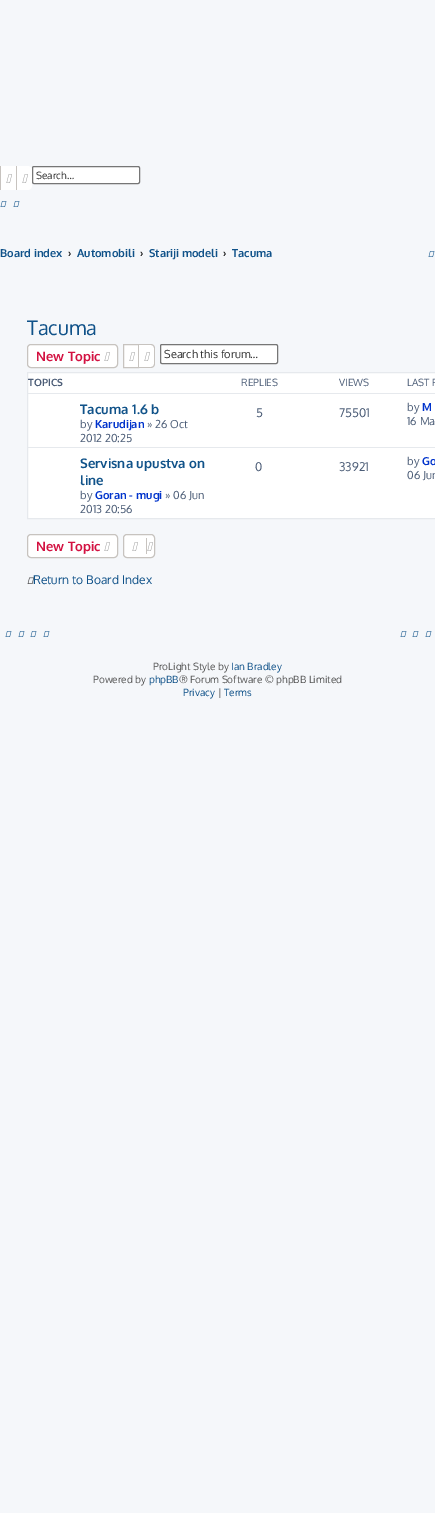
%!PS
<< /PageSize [435 1513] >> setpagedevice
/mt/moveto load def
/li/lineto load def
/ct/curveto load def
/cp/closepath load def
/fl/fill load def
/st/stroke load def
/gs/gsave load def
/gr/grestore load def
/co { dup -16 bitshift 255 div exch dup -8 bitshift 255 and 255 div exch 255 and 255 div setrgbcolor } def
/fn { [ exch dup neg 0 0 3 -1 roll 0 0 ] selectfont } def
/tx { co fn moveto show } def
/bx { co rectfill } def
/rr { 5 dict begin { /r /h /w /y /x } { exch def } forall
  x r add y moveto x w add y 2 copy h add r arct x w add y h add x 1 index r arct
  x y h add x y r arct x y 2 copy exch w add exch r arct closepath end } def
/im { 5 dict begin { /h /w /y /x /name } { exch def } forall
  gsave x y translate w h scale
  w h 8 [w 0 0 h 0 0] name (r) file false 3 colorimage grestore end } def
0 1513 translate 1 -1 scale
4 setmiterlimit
0 0 435 1513 16#F5F7FA bx
1 166 15 24 16#FFFFFF bx
16 166 1 24 16#C7C3BF bx
0 166 1 24 16#C7C3BF bx
(media/1.raw) 6 174 6 9 im
16#FFFFFF co
17 166 mt 28 166 li 30 166 32 168 32 170 ct 32 186 li 32 188 30 190 28 190 ct 17 190 li cp fl
(media/1.raw) 22 174 6 9 im
32.5 166.5 107 17 1.5 rr gs fl gr
16#767676 co
st
(media/2.raw) 0 201 7 6 im
(media/2.raw) 13 201 7 6 im
(media/2.raw) 428 251 7 6 im
16#FFFFFF co
27.5 344.5 90 23 3.5 rr gs fl gr
16#C7C3BF co
st
(media/1.raw) 104 352 6 9 im
16#FFFFFF co
123.5 344.5 mt 138.5 344.5 li 138.5 367.5 li 123.5 367.5 li cp gs fl gr
16#C7C3BF co
st
(media/1.raw) 129 352 6 9 im
16#FFFFFF co
139 345 mt 151 345 li 152.5 345 154 346.5 154 348 ct 154 364 li 154 365.5 152.5 367 151 367 ct 139 367 li cp fl
16#C7C3BF co
139 344 mt 151 344 li 153 344 155 346 155 348 ct 155 364 li 155 366 153 368 151 368 ct 139 368 li cp 139 345 mt 151 345 li 152.5 345 154 346.5 154 348 ct 154 364 li 154 365.5 152.5 367 151 367 ct 139 367 li cp eofill
(media/1.raw) 144 352 6 9 im
16#FFFFFF co
160.5 344.5 117 19 1.5 rr gs fl gr
16#767676 co
st
16#FFFFFF co
27.5 372.5 mt 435.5 372.5 li 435.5 518.5 li 27.5 518.5 li cp gs fl gr
16#E6E9ED co
st
28 393 407 1 16#E6E9ED bx
28 447 407 1 16#E6E9ED bx
16#FFFFFF co
27.5 534.5 90 23 3.5 rr gs fl gr
16#C7C3BF co
st
(media/1.raw) 104 542 6 9 im
16#FFFFFF co
123.5 534.5 31 23 3.5 rr gs fl gr
16#C7C3BF co
st
(media/1.raw) 132 542 6 9 im
146 538 1 16 16#C7C3BF bx
(media/1.raw) 147 542 6 9 im
(media/3.raw) 27 577 7 7 im
(media/2.raw) 5 631 7 6 im
(media/2.raw) 18 631 7 6 im
(media/2.raw) 30 631 7 6 im
(media/2.raw) 43 631 7 6 im
(media/2.raw) 400 631 7 6 im
(media/2.raw) 412 631 7 6 im
(media/2.raw) 425 631 7 6 im
(Search…) 36 179 /Oxygen-Regular 10 16#333333 tx
(Board index) 0 257 /Oxygen-Bold 11 16#105289 tx
(›) 68 257 /Oxygen-Bold 11 16#000000 tx
(Automobili) 77 257 /Oxygen-Bold 11 16#105289 tx
(›) 140 257 /Oxygen-Bold 11 16#000000 tx
(Stariji modeli) 149 257 /Oxygen-Bold 11 16#105289 tx
(›) 223 257 /Oxygen-Bold 11 16#000000 tx
(Tacuma) 232 257 /Oxygen-Bold 11 16#105289 tx
(Tacuma) 27 335 /Oxygen-Regular 20 16#105289 tx
(New Topic) 36 361 /Oxygen-Bold 13 16#D31141 tx
(Search this forum…) 164 358 /Oxygen-Regular 11 16#333333 tx
(TOPICS) 28 386 /Oxygen-Bold 10 16#4C5D77 tx
(REPLIES) 241 386 /Oxygen-Regular 10 16#4C5D77 tx
(VIEWS) 339 386 /Oxygen-Regular 10 16#4C5D77 tx
(LAST P) 407 386 /Oxygen-Regular 10 16#4C5D77 tx
(Tacuma 1.6 b) 80 414 /Oxygen-Bold 13.25 16#105289 tx
(by) 80 428 /Oxygen-Regular 11 16#4C5D77 tx
(Karudijan) 95 428 /Oxygen-Bold 11 16#0033CC tx
(» 26 Oct) 147 428 /Oxygen-Regular 11 16#4C5D77 tx
(2012 20:25) 80 442 /Oxygen-Regular 11 16#4C5D77 tx
(5) 256 417 /Oxygen-Regular 12 16#4C5D77 tx
(75501) 339 417 /Oxygen-Regular 12 16#4C5D77 tx
(by) 407 411 /Oxygen-Regular 11 16#4C5D77 tx
(M) 422 411 /Oxygen-Bold 11 16#0033CC tx
(16 Ma) 407 425 /Oxygen-Regular 11 16#4C5D77 tx
(Servisna upustva on) 80 468 /Oxygen-Bold 13.25 16#105289 tx
(line) 80 485 /Oxygen-Bold 13.25 16#105289 tx
(by) 80 499 /Oxygen-Regular 11 16#4C5D77 tx
(Goran - mugi) 95 499 /Oxygen-Bold 11 16#0033CC tx
(» 06 Jun) 165 499 /Oxygen-Regular 11 16#4C5D77 tx
(2013 20:56) 80 513 /Oxygen-Regular 11 16#4C5D77 tx
(0) 255 471 /Oxygen-Regular 12 16#4C5D77 tx
(33921) 339 471 /Oxygen-Regular 12 16#4C5D77 tx
(by) 407 465 /Oxygen-Regular 11 16#4C5D77 tx
(Go) 422 465 /Oxygen-Bold 11 16#0033CC tx
(06 Jun) 407 479 /Oxygen-Regular 11 16#4C5D77 tx
(New Topic) 36 551 /Oxygen-Bold 13 16#D31141 tx
(Return to Board Index) 33 584 /Oxygen-Regular 12 16#105289 tx
(ProLight Style by) 153 670 /Oxygen-Regular 10 16#555555 tx
(Ian Bradley) 231 670 /Oxygen-Regular 10 16#105289 tx
(Powered by) 93 683 /Oxygen-Regular 10 16#555555 tx
(phpBB) 149 683 /Oxygen-Regular 10 16#105289 tx
(® Forum Software © phpBB Limited) 179 683 /Oxygen-Regular 10 16#555555 tx
(Privacy) 183 696 /Oxygen-Regular 10 16#105289 tx
(|) 218 696 /Oxygen-Regular 10 16#555555 tx
(Terms) 224 696 /Oxygen-Regular 10 16#105289 tx
showpage
